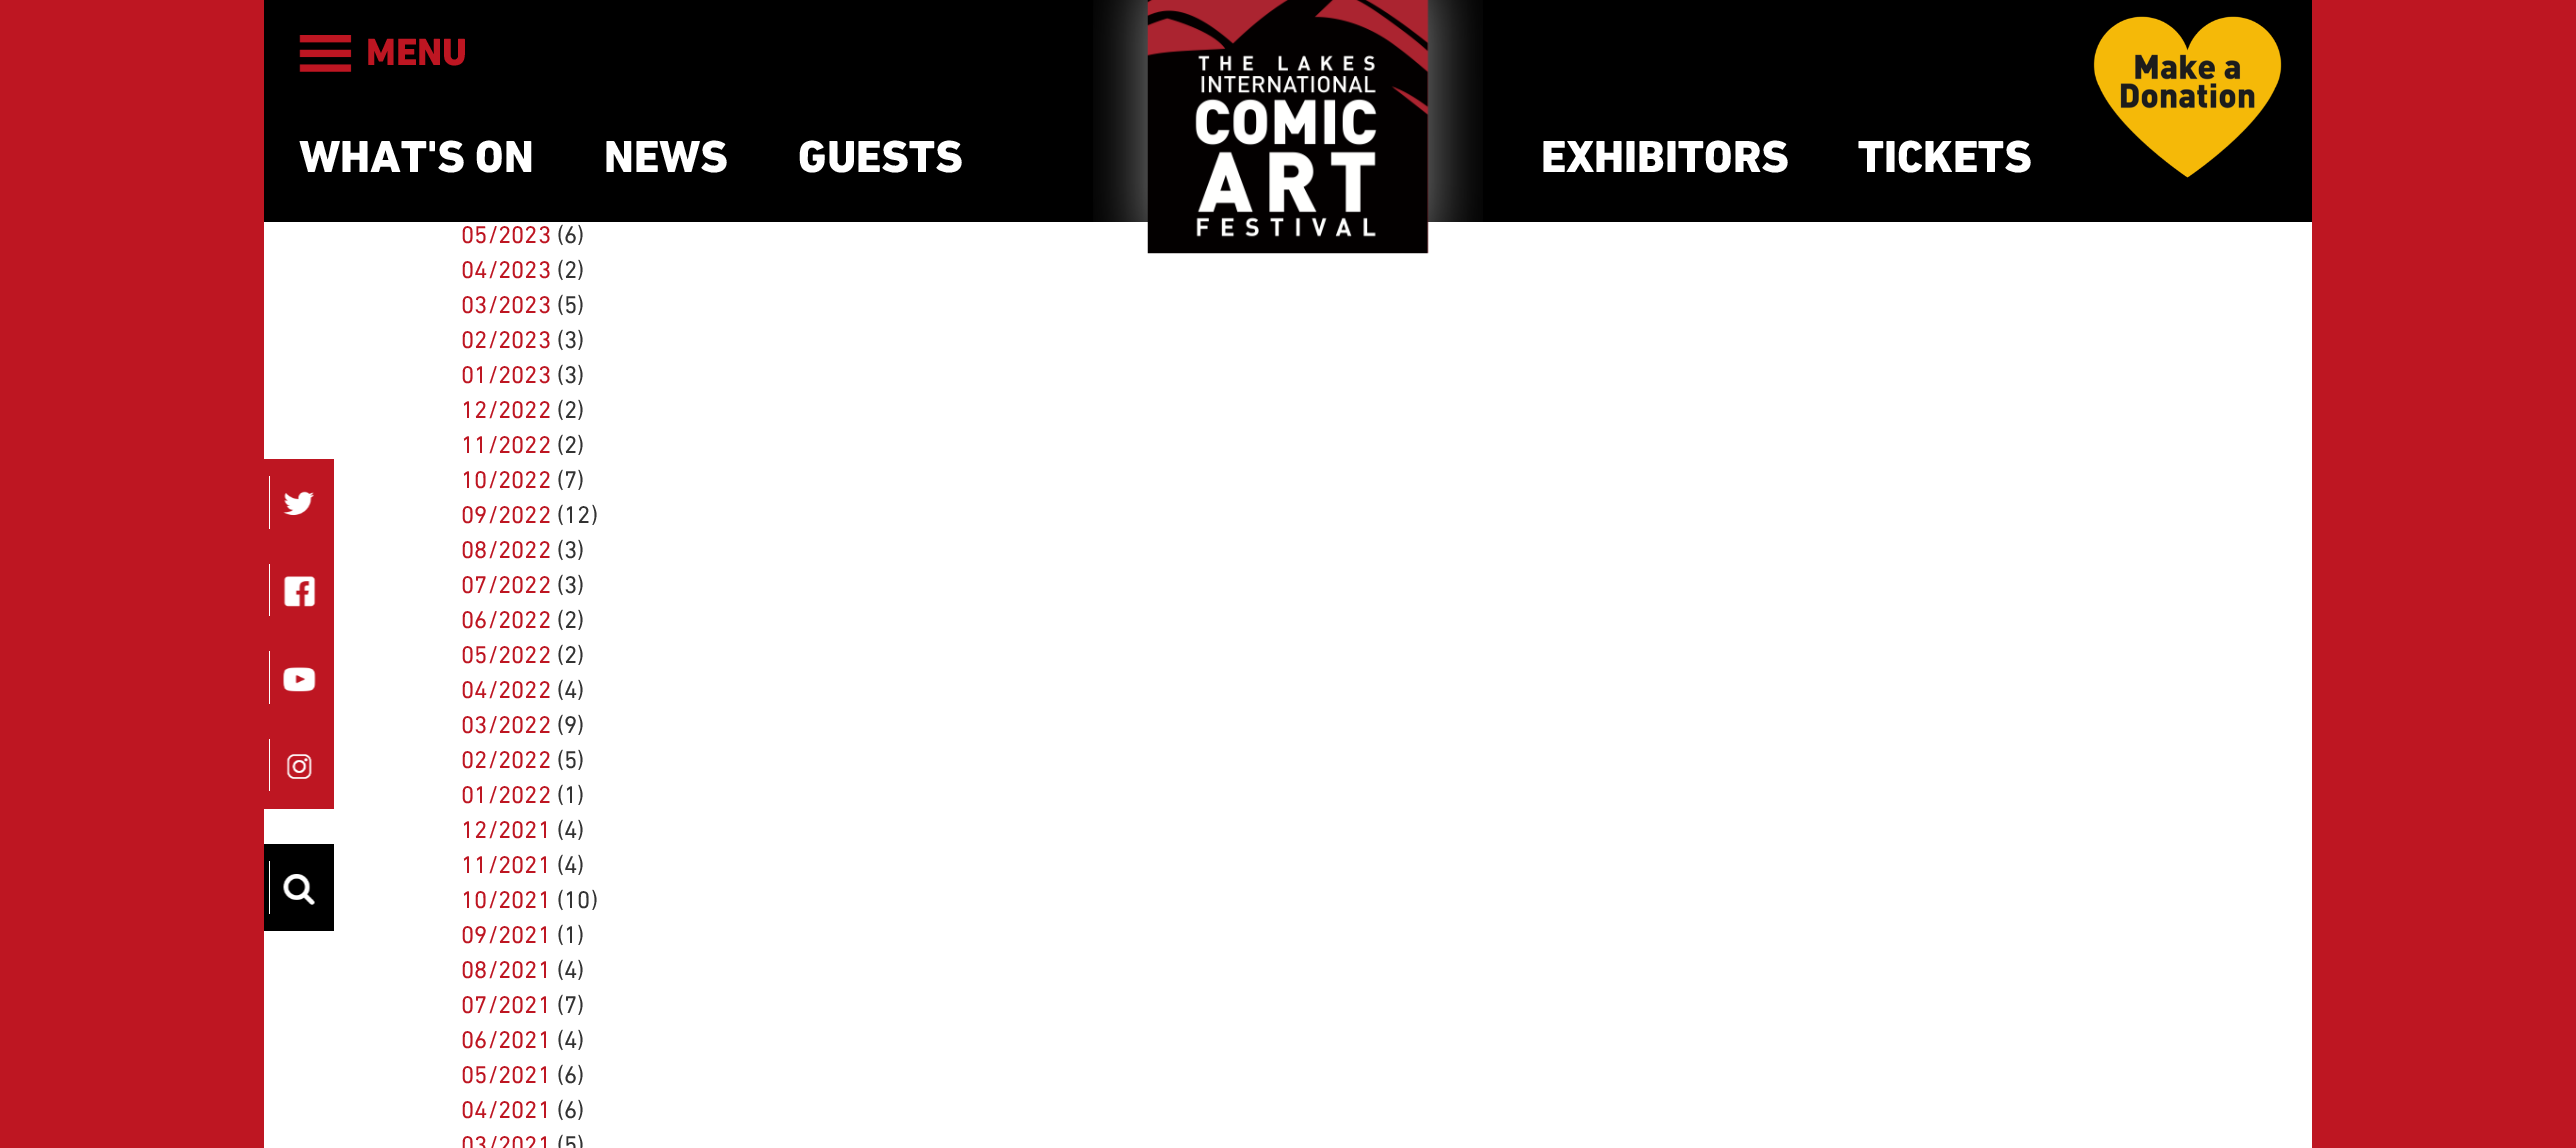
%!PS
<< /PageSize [2576 1148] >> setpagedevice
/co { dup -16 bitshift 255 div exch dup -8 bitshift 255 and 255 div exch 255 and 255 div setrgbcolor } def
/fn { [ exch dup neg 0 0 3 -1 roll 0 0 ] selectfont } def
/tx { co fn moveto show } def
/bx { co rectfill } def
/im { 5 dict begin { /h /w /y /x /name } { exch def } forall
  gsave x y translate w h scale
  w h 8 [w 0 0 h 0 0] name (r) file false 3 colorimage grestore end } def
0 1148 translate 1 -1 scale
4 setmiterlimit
0 0 2576 1148 16#BE1622 bx
264 0 2048 222 16#000000 bx
(media/1.raw) 299 35 53 37 im
264 222 2048 926 16#FFFFFF bx
(media/2.raw) 1093 0 390 254 im
(media/3.raw) 2093 16 189 162 im
270 476 59 53 16#BE1622 bx
269 459 60 17 16#BE1622 bx
329 459 5 70 16#BE1622 bx
269 529 65 17 16#BE1622 bx
264 459 5 350 16#BE1622 bx
(media/4.raw) 283 491 32 25 im
270 564 59 52 16#BE1622 bx
269 546 60 18 16#BE1622 bx
329 546 5 70 16#BE1622 bx
269 616 65 18 16#BE1622 bx
(media/5.raw) 283 576 33 31 im
270 651 59 53 16#BE1622 bx
269 634 60 17 16#BE1622 bx
329 634 5 70 16#BE1622 bx
269 704 65 17 16#BE1622 bx
(media/6.raw) 283 667 33 25 im
270 739 59 52 16#BE1622 bx
269 721 60 18 16#BE1622 bx
329 721 5 70 16#BE1622 bx
269 791 65 18 16#BE1622 bx
(media/7.raw) 286 754 26 25 im
270 861 59 53 16#000000 bx
269 844 60 17 16#000000 bx
329 844 5 70 16#000000 bx
269 914 65 17 16#000000 bx
264 844 5 87 16#000000 bx
(media/8.raw) 283 874 32 31 im
(MENU) 366 65 /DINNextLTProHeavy-Regular 38.5 16#BE1622 tx
(WHAT'S ON) 299 172 /DINNextLTProHeavy-Regular 45.5 16#FFFFFF tx
(NEWS) 604 172 /DINNextLTProHeavy-Regular 45.5 16#FFFFFF tx
(GUESTS) 798 172 /DINNextLTProHeavy-Regular 45.5 16#FFFFFF tx
(EXHIBITORS) 1541 172 /DINNextLTProHeavy-Regular 45.5 16#FFFFFF tx
(TICKETS) 1858 172 /DINNextLTProHeavy-Regular 45.5 16#FFFFFF tx
(05/2023) 461 243 /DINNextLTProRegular-Regular 24.5 16#BE1622 tx
(\(6\)) 557 243 /DINNextLTProRegular-Regular 24.5 16#333333 tx
(04/2023) 461 278 /DINNextLTProRegular-Regular 24.5 16#BE1622 tx
(\(2\)) 557 278 /DINNextLTProRegular-Regular 24.5 16#333333 tx
(03/2023) 461 313 /DINNextLTProRegular-Regular 24.5 16#BE1622 tx
(\(5\)) 557 313 /DINNextLTProRegular-Regular 24.5 16#333333 tx
(02/2023) 461 348 /DINNextLTProRegular-Regular 24.5 16#BE1622 tx
(\(3\)) 557 348 /DINNextLTProRegular-Regular 24.5 16#333333 tx
(01/2023) 461 383 /DINNextLTProRegular-Regular 24.5 16#BE1622 tx
(\(3\)) 557 383 /DINNextLTProRegular-Regular 24.5 16#333333 tx
(12/2022) 461 418 /DINNextLTProRegular-Regular 24.5 16#BE1622 tx
(\(2\)) 557 418 /DINNextLTProRegular-Regular 24.5 16#333333 tx
(11/2022) 461 453 /DINNextLTProRegular-Regular 24.5 16#BE1622 tx
(\(2\)) 557 453 /DINNextLTProRegular-Regular 24.5 16#333333 tx
(10/2022) 461 488 /DINNextLTProRegular-Regular 24.5 16#BE1622 tx
(\(7\)) 557 488 /DINNextLTProRegular-Regular 24.5 16#333333 tx
(09/2022) 461 523 /DINNextLTProRegular-Regular 24.5 16#BE1622 tx
(\(12\)) 557 523 /DINNextLTProRegular-Regular 24.5 16#333333 tx
(08/2022) 461 558 /DINNextLTProRegular-Regular 24.5 16#BE1622 tx
(\(3\)) 557 558 /DINNextLTProRegular-Regular 24.5 16#333333 tx
(07/2022) 461 593 /DINNextLTProRegular-Regular 24.5 16#BE1622 tx
(\(3\)) 557 593 /DINNextLTProRegular-Regular 24.5 16#333333 tx
(06/2022) 461 628 /DINNextLTProRegular-Regular 24.5 16#BE1622 tx
(\(2\)) 557 628 /DINNextLTProRegular-Regular 24.5 16#333333 tx
(05/2022) 461 663 /DINNextLTProRegular-Regular 24.5 16#BE1622 tx
(\(2\)) 557 663 /DINNextLTProRegular-Regular 24.5 16#333333 tx
(04/2022) 461 698 /DINNextLTProRegular-Regular 24.5 16#BE1622 tx
(\(4\)) 557 698 /DINNextLTProRegular-Regular 24.5 16#333333 tx
(03/2022) 461 733 /DINNextLTProRegular-Regular 24.5 16#BE1622 tx
(\(9\)) 557 733 /DINNextLTProRegular-Regular 24.5 16#333333 tx
(02/2022) 461 768 /DINNextLTProRegular-Regular 24.5 16#BE1622 tx
(\(5\)) 557 768 /DINNextLTProRegular-Regular 24.5 16#333333 tx
(01/2022) 461 803 /DINNextLTProRegular-Regular 24.5 16#BE1622 tx
(\(1\)) 557 803 /DINNextLTProRegular-Regular 24.5 16#333333 tx
(12/2021) 461 838 /DINNextLTProRegular-Regular 24.5 16#BE1622 tx
(\(4\)) 557 838 /DINNextLTProRegular-Regular 24.5 16#333333 tx
(11/2021) 461 873 /DINNextLTProRegular-Regular 24.5 16#BE1622 tx
(\(4\)) 557 873 /DINNextLTProRegular-Regular 24.5 16#333333 tx
(10/2021) 461 908 /DINNextLTProRegular-Regular 24.5 16#BE1622 tx
(\(10\)) 557 908 /DINNextLTProRegular-Regular 24.5 16#333333 tx
(09/2021) 461 943 /DINNextLTProRegular-Regular 24.5 16#BE1622 tx
(\(1\)) 557 943 /DINNextLTProRegular-Regular 24.5 16#333333 tx
(08/2021) 461 978 /DINNextLTProRegular-Regular 24.5 16#BE1622 tx
(\(4\)) 557 978 /DINNextLTProRegular-Regular 24.5 16#333333 tx
(07/2021) 461 1013 /DINNextLTProRegular-Regular 24.5 16#BE1622 tx
(\(7\)) 557 1013 /DINNextLTProRegular-Regular 24.5 16#333333 tx
(06/2021) 461 1048 /DINNextLTProRegular-Regular 24.5 16#BE1622 tx
(\(4\)) 557 1048 /DINNextLTProRegular-Regular 24.5 16#333333 tx
(05/2021) 461 1083 /DINNextLTProRegular-Regular 24.5 16#BE1622 tx
(\(6\)) 557 1083 /DINNextLTProRegular-Regular 24.5 16#333333 tx
(04/2021) 461 1118 /DINNextLTProRegular-Regular 24.5 16#BE1622 tx
(\(6\)) 557 1118 /DINNextLTProRegular-Regular 24.5 16#333333 tx
(03/2021) 461 1153 /DINNextLTProRegular-Regular 24.5 16#BE1622 tx
(\(5\)) 557 1153 /DINNextLTProRegular-Regular 24.5 16#333333 tx
showpage
